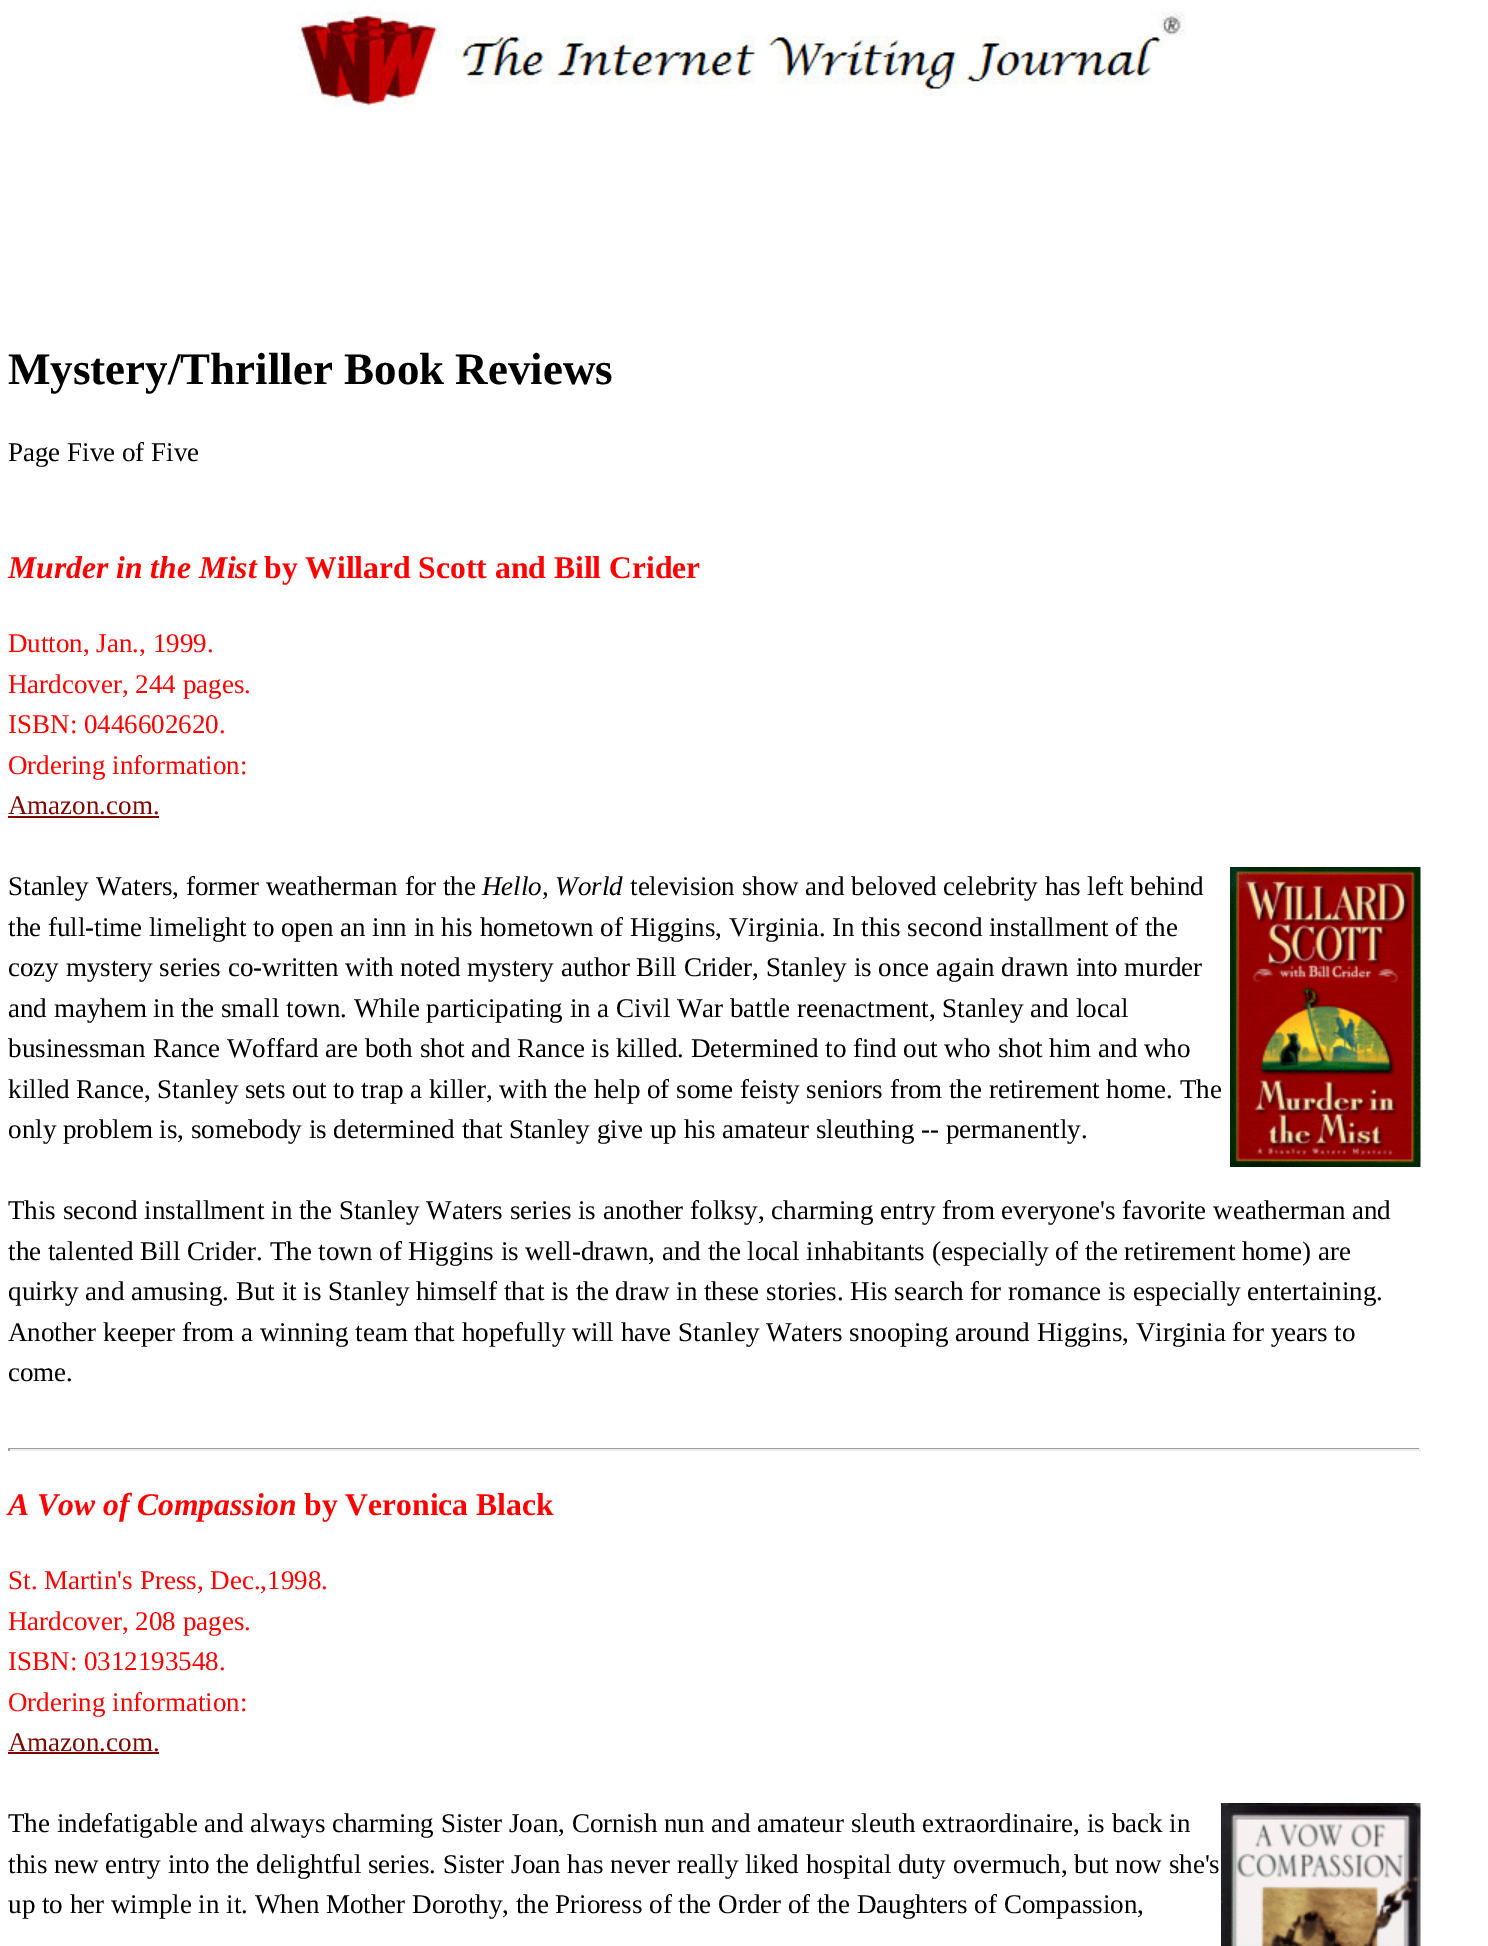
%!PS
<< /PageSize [1488 1946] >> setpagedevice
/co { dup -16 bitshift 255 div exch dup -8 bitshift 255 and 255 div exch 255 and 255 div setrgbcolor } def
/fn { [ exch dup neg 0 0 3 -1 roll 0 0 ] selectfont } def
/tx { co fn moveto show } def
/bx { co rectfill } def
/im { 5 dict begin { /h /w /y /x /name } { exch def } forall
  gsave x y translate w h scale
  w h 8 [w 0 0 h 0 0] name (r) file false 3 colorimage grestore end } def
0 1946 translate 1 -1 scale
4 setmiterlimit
0 0 1488 1946 16#FFFFFF bx
(media/1.raw) 298 0 888 108 im
8 816 151 2 16#800800 bx
(media/2.raw) 1230 867 191 300 im
8 1448 1413 1 16#9F9F9F bx
1419 1448 2 3 16#EEEEEE bx
8 1449 1413 2 16#EEEEEE bx
8 1448 2 3 16#9F9F9F bx
8 1752 151 2 16#800800 bx
(media/3.raw) 1221 1803 200 143 im
(Mystery/Thriller Book Reviews) 8 384 /LiberationSerif-Bold 45 16#000000 tx
(Page Five of Five) 8 461 /LiberationSerif-Regular 27 16#000000 tx
(Murder in the Mist) 8 578 /LiberationSerif-BoldItalic 31.6 16#FF0000 tx
(by Willard Scott and Bill Crider) 264 578 /LiberationSerif-Bold 31.6 16#FF0000 tx
(Dutton, Jan., 1999.) 8 652 /LiberationSerif-Regular 27 16#FF0000 tx
(Hardcover, 244 pages.) 8 693 /LiberationSerif-Regular 27 16#FF0000 tx
(ISBN: 0446602620.) 8 733 /LiberationSerif-Regular 27 16#FF0000 tx
(Ordering information:) 8 774 /LiberationSerif-Regular 27 16#FF0000 tx
(Amazon.com.) 8 814 /LiberationSerif-Regular 27 16#800800 tx
(Stanley Waters, former weatherman for the) 8 895 /LiberationSerif-Regular 27 16#000000 tx
(Hello, World) 482 895 /LiberationSerif-Italic 27 16#000000 tx
(television show and beloved celebrity has left behind) 630 895 /LiberationSerif-Regular 27 16#000000 tx
(the full-time limelight to open an inn in his hometown of Higgins, Virginia. In this second installment of the) 8 936 /LiberationSerif-Regular 27 16#000000 tx
(cozy mystery series co-written with noted mystery author Bill Crider, Stanley is once again drawn into murder) 8 976 /LiberationSerif-Regular 27 16#000000 tx
(and mayhem in the small town. While participating in a Civil War battle reenactment, Stanley and local) 8 1017 /LiberationSerif-Regular 27 16#000000 tx
(businessman Rance Woffard are both shot and Rance is killed. Determined to find out who shot him and who) 8 1057 /LiberationSerif-Regular 27 16#000000 tx
(killed Rance, Stanley sets out to trap a killer, with the help of some feisty seniors from the retirement home. The) 8 1098 /LiberationSerif-Regular 27 16#000000 tx
(only problem is, somebody is determined that Stanley give up his amateur sleuthing -- permanently.) 8 1138 /LiberationSerif-Regular 27 16#000000 tx
(This second installment in the Stanley Waters series is another folksy, charming entry from everyone's favorite weatherman and) 8 1219 /LiberationSerif-Regular 27 16#000000 tx
(the talented Bill Crider. The town of Higgins is well-drawn, and the local inhabitants \(especially of the retirement home\) are) 8 1260 /LiberationSerif-Regular 27 16#000000 tx
(quirky and amusing. But it is Stanley himself that is the draw in these stories. His search for romance is especially entertaining.) 8 1300 /LiberationSerif-Regular 27 16#000000 tx
(Another keeper from a winning team that hopefully will have Stanley Waters snooping around Higgins, Virginia for years to) 8 1341 /LiberationSerif-Regular 27 16#000000 tx
(come.) 8 1381 /LiberationSerif-Regular 27 16#000000 tx
(A Vow of Compassion) 8 1515 /LiberationSerif-BoldItalic 31.6 16#FF0000 tx
(by Veronica Black) 304 1515 /LiberationSerif-Bold 31.6 16#FF0000 tx
(St. Martin's Press, Dec.,1998.) 8 1589 /LiberationSerif-Regular 27 16#FF0000 tx
(Hardcover, 208 pages.) 8 1630 /LiberationSerif-Regular 27 16#FF0000 tx
(ISBN: 0312193548.) 8 1670 /LiberationSerif-Regular 27 16#FF0000 tx
(Ordering information:) 8 1711 /LiberationSerif-Regular 27 16#FF0000 tx
(Amazon.com.) 8 1751 /LiberationSerif-Regular 27 16#800800 tx
(The indefatigable and always charming Sister Joan, Cornish nun and amateur sleuth extraordinaire, is back in) 8 1832 /LiberationSerif-Regular 27 16#000000 tx
(this new entry into the delightful series. Sister Joan has never really liked hospital duty overmuch, but now she's) 8 1873 /LiberationSerif-Regular 27 16#000000 tx
(up to her wimple in it. When Mother Dorothy, the Prioress of the Order of the Daughters of Compassion,) 8 1913 /LiberationSerif-Regular 27 16#000000 tx
showpage
